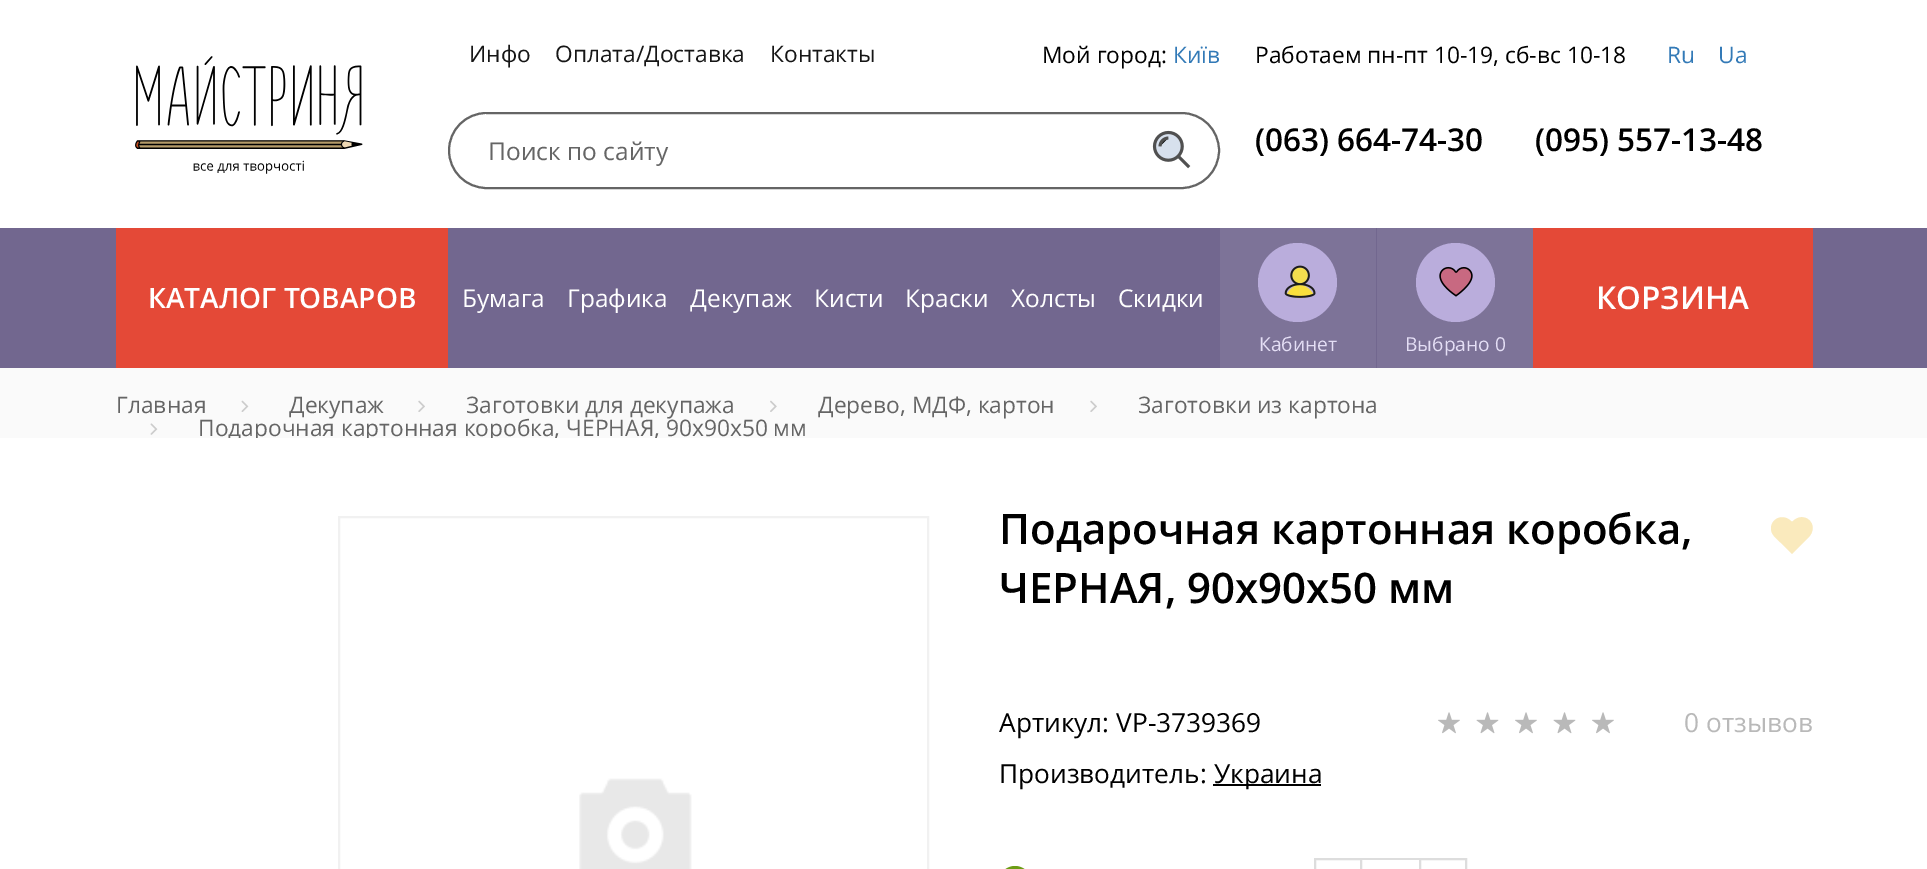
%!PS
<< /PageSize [1927 869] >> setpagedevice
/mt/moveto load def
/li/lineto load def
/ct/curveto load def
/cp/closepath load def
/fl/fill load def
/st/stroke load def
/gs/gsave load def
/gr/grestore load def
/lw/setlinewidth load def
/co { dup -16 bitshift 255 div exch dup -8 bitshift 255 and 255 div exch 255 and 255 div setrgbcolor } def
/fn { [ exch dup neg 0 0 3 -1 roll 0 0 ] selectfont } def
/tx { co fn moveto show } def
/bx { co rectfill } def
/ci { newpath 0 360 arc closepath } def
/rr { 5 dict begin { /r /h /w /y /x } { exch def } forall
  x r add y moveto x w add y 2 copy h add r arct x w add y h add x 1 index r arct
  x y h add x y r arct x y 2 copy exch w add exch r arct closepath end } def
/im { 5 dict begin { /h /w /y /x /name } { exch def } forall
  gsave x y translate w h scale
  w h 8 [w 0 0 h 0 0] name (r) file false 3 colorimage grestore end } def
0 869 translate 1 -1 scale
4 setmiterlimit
0 0 1927 869 16#FFFFFF bx
(media/1.raw) 135 56 228 118 im
16#656565 co
2 lw
449 113 770 75 37.5 rr st
485 114 1 73 16#FFFFFF bx
(media/2.raw) 1152 130 39 39 im
0 228 1927 140 16#72678F bx
116 228 332 140 16#E44937 bx
1533 228 280 140 16#E44937 bx
1220 228 156 140 16#7D7398 bx
16#BAADDC co
1297.5 282.5 39.5 ci fl
(media/3.raw) 1284 265 32 33 im
1377 228 156 140 16#7D7398 bx
16#BAADDC co
1455.5 282.5 39.5 ci fl
(media/4.raw) 1439 266 34 31 im
0 368 1927 70 16#FAFAFA bx
(media/5.raw) 241 400 8 12 im
(media/6.raw) 418 400 7 12 im
(media/7.raw) 770 400 7 12 im
(media/6.raw) 1090 400 7 12 im
(media/8.raw) 150 423 8 12 im
16#F1F1F1 co
339 517 589 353 rectstroke
(media/9.raw) 579 778 113 91 im
16#FAEABD co
1808 538 mt 1821 525 1804 509 1792 522 ct 1782 511 1767 521 1772 533 ct 1774 537 1778 540 1781 543 ct 1792 554 li cp fl
1213 784 108 2 16#000000 bx
(media/10.raw) 1438 712 22 22 im
(media/11.raw) 1476 712 23 22 im
(media/10.raw) 1515 712 22 22 im
(media/11.raw) 1553 712 23 22 im
(media/10.raw) 1592 712 22 22 im
16#DDDDDD co
1315 859 46 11 rectstroke
1362 858 57 2 16#DDDDDD bx
1420 859 46 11 rectstroke
16#6C9D15 co
999 866 32 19 16 rr fl
(Инфо) 469 62 /OpenSans-Regular 22.75 16#161616 tx
(Оплата/Доставка) 555 62 /OpenSans-Regular 22.75 16#161616 tx
(Контакты) 770 62 /OpenSans-Regular 22.75 16#161616 tx
(Мой город:) 1042 63 /OpenSans-Regular 22.75 16#000000 tx
(Київ) 1173 63 /OpenSans-Regular 22.75 16#337AB7 tx
(Поиск по сайту) 488 160 /OpenSans-Regular 24.5 16#656565 tx
(Работаем пн-пт 10-19, сб-вс 10-18) 1255 63 /OpenSans-Regular 22.75 16#000000 tx
(Ru) 1667 63 /OpenSans-Regular 22.75 16#337AB7 tx
(Ua) 1718 63 /OpenSans-Regular 22.75 16#337AB7 tx
(\(063\) 664-74-30) 1255 151 /OpenSans-SemiBold 31.5 16#000000 tx
(\(095\) 557-13-48) 1535 151 /OpenSans-SemiBold 31.5 16#000000 tx
(КАТАЛОГ ТОВАРОВ) 148 308 /OpenSans-SemiBold 28 16#FFFFFF tx
(Бумага) 462 307 /OpenSans-Regular 24.5 16#FFFFFF tx
(Графика) 567 307 /OpenSans-Regular 24.5 16#FFFFFF tx
(Декупаж) 690 307 /OpenSans-Regular 24.5 16#FFFFFF tx
(Кисти) 814 307 /OpenSans-Regular 24.5 16#FFFFFF tx
(Краски) 905 307 /OpenSans-Regular 24.5 16#FFFFFF tx
(Холсты) 1011 307 /OpenSans-Regular 24.5 16#FFFFFF tx
(Скидки) 1118 307 /OpenSans-Regular 24.5 16#FFFFFF tx
(КОРЗИНА) 1596 309 /OpenSans-SemiBold 31.5 16#FFFFFF tx
(Кабинет) 1259 351 /OpenSans-Regular 19.25 16#E4DEF5 tx
(Выбрано 0) 1405 351 /OpenSans-Regular 19.25 16#E4DEF5 tx
(Главная) 116 413 /OpenSans-Regular 22.75 16#656565 tx
(Декупаж) 289 413 /OpenSans-Regular 22.75 16#656565 tx
(Заготовки для декупажа) 466 413 /OpenSans-Regular 22.75 16#656565 tx
(Дерево, МДФ, картон) 818 413 /OpenSans-Regular 22.75 16#656565 tx
(Заготовки из картона) 1138 413 /OpenSans-Regular 22.75 16#656565 tx
gs
116 368 1697 70 rectclip
(Подарочная картонная коробка, ЧЕРНАЯ, 90х90х50 мм) 198 436 /OpenSans-Regular 22.75 16#656565 tx
gr
(Подарочная картонная коробка,) 999 544 /OpenSans-SemiBold 42 16#000000 tx
(ЧЕРНАЯ, 90х90х50 мм) 999 603 /OpenSans-SemiBold 42 16#000000 tx
(Артикул: VP-3739369) 999 732 /OpenSans-Regular 26.25 16#000000 tx
(Производитель:) 999 783 /OpenSans-Regular 26.25 16#000000 tx
(Украина) 1214 783 /OpenSans-Regular 26.25 16#000000 tx
(0 отзывов) 1684 732 /OpenSans-Regular 26.25 16#B9B9B9 tx
showpage
